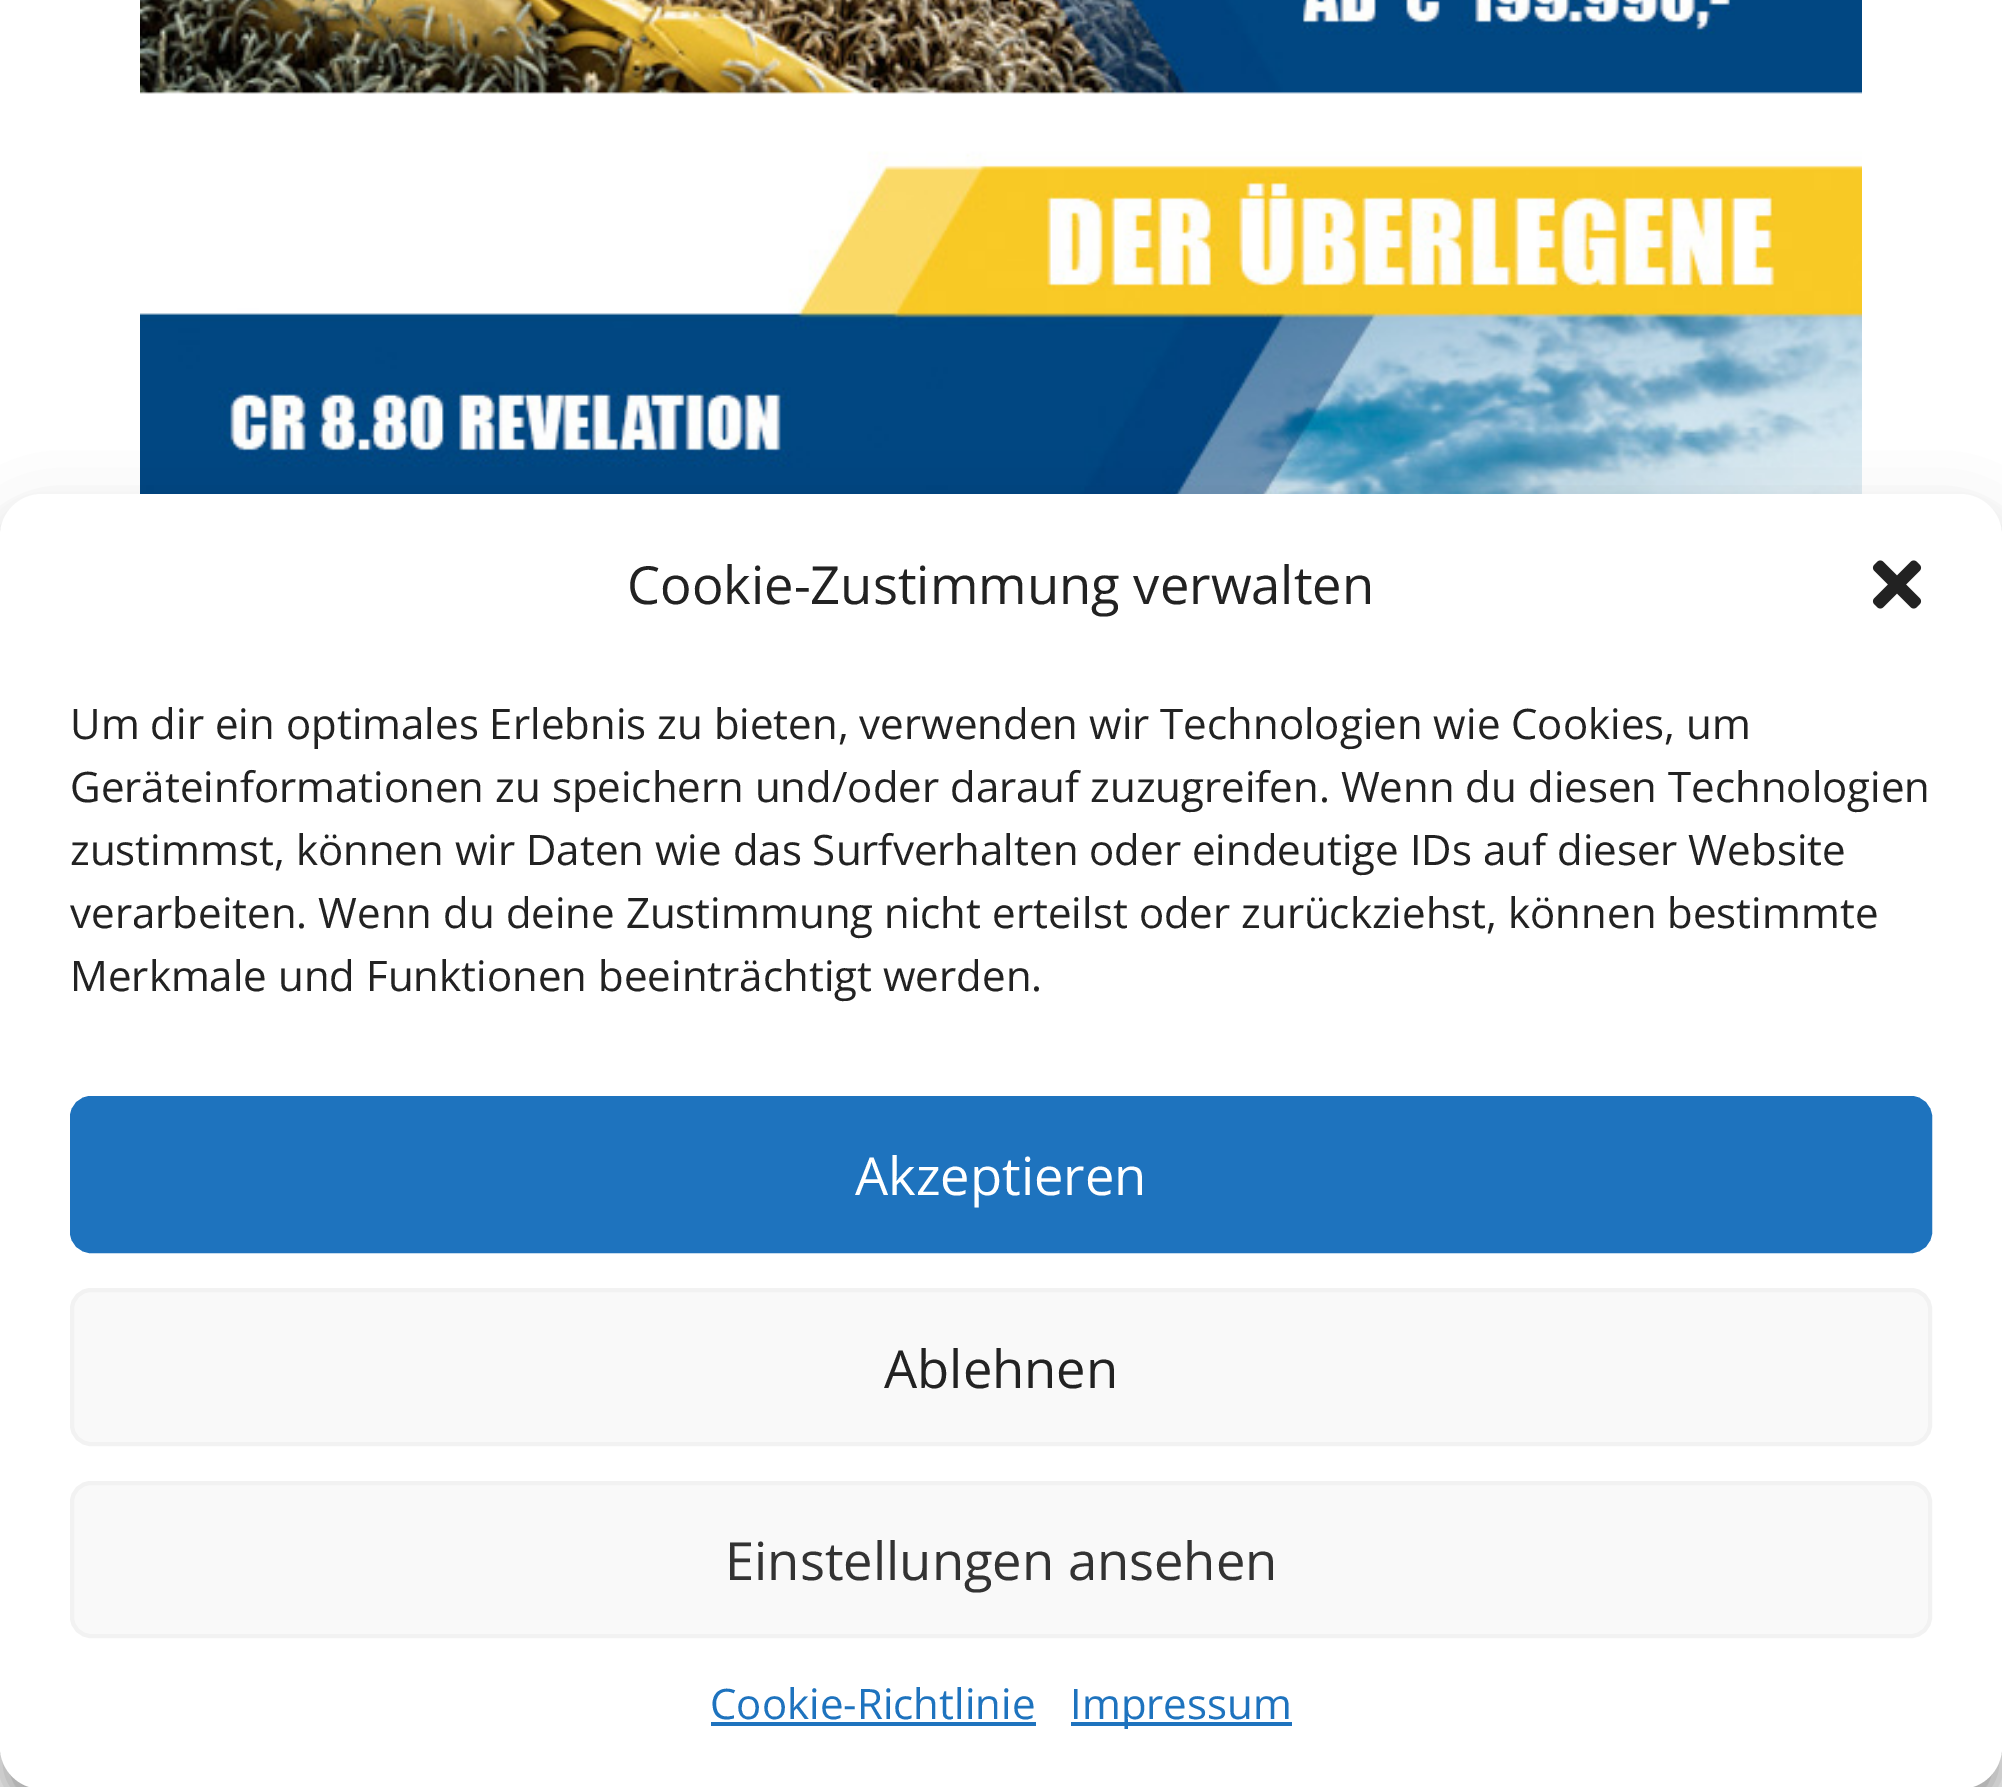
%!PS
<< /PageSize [2002 1787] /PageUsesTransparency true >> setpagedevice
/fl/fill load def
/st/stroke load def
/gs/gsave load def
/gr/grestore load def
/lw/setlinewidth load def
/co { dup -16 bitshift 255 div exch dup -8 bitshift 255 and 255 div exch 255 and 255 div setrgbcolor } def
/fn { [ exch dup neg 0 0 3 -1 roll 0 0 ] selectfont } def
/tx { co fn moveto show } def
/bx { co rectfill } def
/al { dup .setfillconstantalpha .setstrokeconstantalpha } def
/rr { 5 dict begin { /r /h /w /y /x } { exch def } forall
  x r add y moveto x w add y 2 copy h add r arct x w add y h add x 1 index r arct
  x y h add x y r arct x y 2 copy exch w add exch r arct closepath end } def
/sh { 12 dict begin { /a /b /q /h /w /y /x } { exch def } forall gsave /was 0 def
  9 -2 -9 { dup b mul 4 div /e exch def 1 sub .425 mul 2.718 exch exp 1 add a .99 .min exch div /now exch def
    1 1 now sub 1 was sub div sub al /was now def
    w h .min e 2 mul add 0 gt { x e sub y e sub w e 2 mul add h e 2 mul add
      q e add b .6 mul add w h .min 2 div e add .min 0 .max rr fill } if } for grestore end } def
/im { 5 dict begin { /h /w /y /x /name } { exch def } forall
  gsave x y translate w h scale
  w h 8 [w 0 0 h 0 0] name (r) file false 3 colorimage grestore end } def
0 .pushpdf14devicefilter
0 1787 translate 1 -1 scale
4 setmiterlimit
0 0 2002 1787 16#FFFFFF bx
(media/1.raw) 140 0 1722 494 im
16#000000 co
0 515 2002 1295 42 10.5 .23 sh
0 529 2002 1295 42 35 .19 sh
16#FFFFFF co
0 494 2002 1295 42 rr fl
(media/2.raw) 1872 560 50 49 im
16#1E73BE co
72 1098 1858 153 19 rr gs fl gr
4 lw
st
16#F9F9F9 co
72 1290 1858 154 19 rr gs fl gr
16#F2F2F2 co
st
16#F9F9F9 co
72 1483 1858 153 19 rr gs fl gr
16#F2F2F2 co
st
711 1722 325 4 16#1E73BE bx
1071 1722 221 4 16#1E73BE bx
(Cookie-Zustimmung verwalten) 627 604 /OpenSans-Regular 52.5 16#222222 tx
(Um dir ein optimales Erlebnis zu bieten, verwenden wir Technologien wie Cookies, um) 70 739 /OpenSans-Regular 42 16#222222 tx
(Geräteinformationen zu speichern und/oder darauf zuzugreifen. Wenn du diesen Technologien) 70 802 /OpenSans-Regular 42 16#222222 tx
(zustimmst, können wir Daten wie das Surfverhalten oder eindeutige IDs auf dieser Website) 70 865 /OpenSans-Regular 42 16#222222 tx
(verarbeiten. Wenn du deine Zustimmung nicht erteilst oder zurückziehst, können bestimmte) 70 928 /OpenSans-Regular 42 16#222222 tx
(Merkmale und Funktionen beeinträchtigt werden.) 70 991 /OpenSans-Regular 42 16#222222 tx
(Akzeptieren) 855 1195 /OpenSans-Regular 52.5 16#FFFFFF tx
(Ablehnen) 884 1388 /OpenSans-Regular 52.5 16#222222 tx
(Einstellungen ansehen) 725 1580 /OpenSans-Regular 52.5 16#333333 tx
(Cookie-Richtlinie) 710 1719 /OpenSans-Regular 42 16#1E73BE tx
(Impressum) 1070 1719 /OpenSans-Regular 42 16#1E73BE tx
.poppdf14devicefilter showpage
